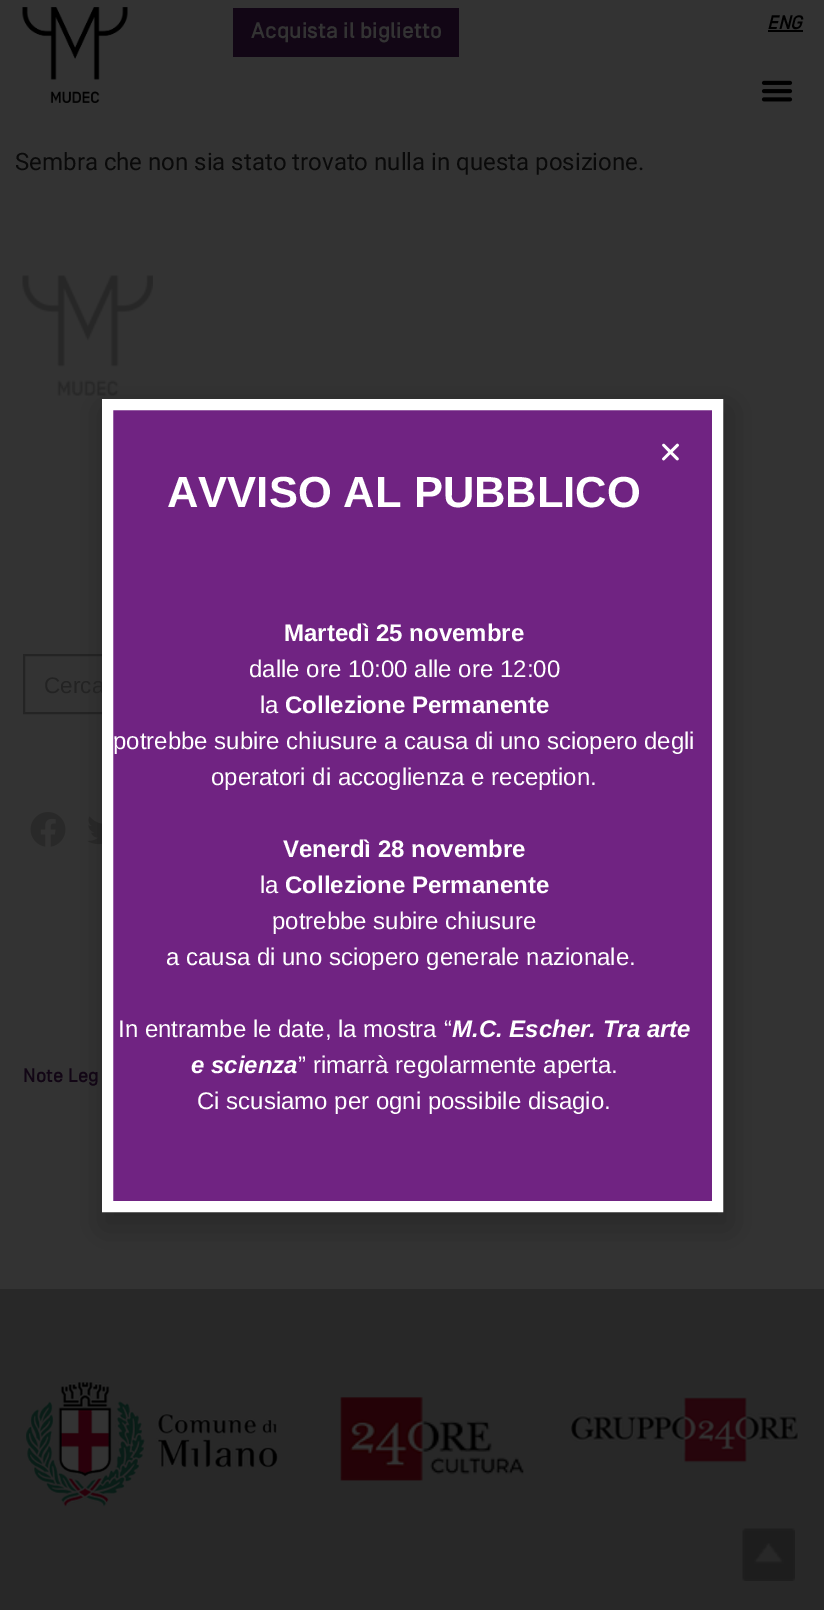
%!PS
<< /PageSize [824 1610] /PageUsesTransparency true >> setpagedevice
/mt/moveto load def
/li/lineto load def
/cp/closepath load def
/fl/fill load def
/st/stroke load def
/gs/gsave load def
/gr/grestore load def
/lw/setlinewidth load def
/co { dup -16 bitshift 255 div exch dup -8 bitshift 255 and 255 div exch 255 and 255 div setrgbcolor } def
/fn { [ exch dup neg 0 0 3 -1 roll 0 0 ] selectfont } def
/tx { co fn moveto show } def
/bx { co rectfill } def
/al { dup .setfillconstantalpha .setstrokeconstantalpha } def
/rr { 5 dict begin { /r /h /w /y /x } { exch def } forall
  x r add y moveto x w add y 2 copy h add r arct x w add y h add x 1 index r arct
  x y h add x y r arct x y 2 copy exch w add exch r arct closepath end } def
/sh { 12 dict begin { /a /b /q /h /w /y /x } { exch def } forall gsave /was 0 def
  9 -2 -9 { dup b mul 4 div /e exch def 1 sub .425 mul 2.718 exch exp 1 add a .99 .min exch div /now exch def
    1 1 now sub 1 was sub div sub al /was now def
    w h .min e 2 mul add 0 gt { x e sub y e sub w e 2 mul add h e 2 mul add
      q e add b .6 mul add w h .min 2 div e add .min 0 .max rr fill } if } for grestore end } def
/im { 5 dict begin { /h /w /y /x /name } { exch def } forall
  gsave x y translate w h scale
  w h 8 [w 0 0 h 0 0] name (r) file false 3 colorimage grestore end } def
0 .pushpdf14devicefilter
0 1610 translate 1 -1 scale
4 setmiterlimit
0 0 824 1610 16#333333 bx
(media/1.raw) 22 7 106 96 im
233 8 226 49 16#120615 bx
768 30 35 2 16#000000 bx
(media/2.raw) 761 80 32 22 im
(media/3.raw) 22 275 131 121 im
16#242424 co
2 lw
24 655 352 58 rectstroke
(media/4.raw) 30 812 36 35 im
(media/5.raw) 87 816 15 29 im
0 1289 824 321 16#282828 bx
(media/6.raw) 742 1528 53 53 im
(media/7.raw) 26 1382 252 125 im
(media/8.raw) 340 1397 184 84 im
(media/9.raw) 569 1396 230 67 im
16#000000 co
101 407 630 822 0 17 .2 sh
(Acquista il biglietto) 251 38 /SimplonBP-Medium 22.5 16#333333 tx
(ENG) 767 29 /SimplonBP-MediumItalic 19.5 16#000000 tx
(Sembra che non sia stato trovato nulla in questa posizione.) 15 170 /Roboto-Regular 24 16#0A0A0A tx
(Cerca) 44 693 /LiberationSans-Regular 22.5 16#232323 tx
(Note Leg) 23 1082 /SimplonBP-Medium 19.5 16#120615 tx
16#702382 co
107.5 404.5 mt 717.5 404.5 li 717.5 1206.5 li 107.5 1206.5 li cp gs fl gr
16#FFFFFF co
11 lw
st
(media/10.raw) 662 443 17 18 im
(AVVISO AL PUBBLICO) 167 507 /LiberationSans-Bold 43.5 16#FFFFFF tx
(Martedì 25 novembre) 284 641 /LiberationSans-Bold 24 16#FFFFFF tx
(dalle ore 10:00 alle ore 12:00) 249 677 /LiberationSans-Regular 24 16#FFFFFF tx
(la) 260 713 /LiberationSans-Regular 24 16#FFFFFF tx
(Collezione Permanente) 285 713 /LiberationSans-Bold 24 16#FFFFFF tx
(potrebbe subire chiusure a causa di uno sciopero degli) 113 749 /LiberationSans-Regular 24 16#FFFFFF tx
(operatori di accoglienza e reception.) 211 785 /LiberationSans-Regular 24 16#FFFFFF tx
(Venerdì 28 novembre) 283 857 /LiberationSans-Bold 24 16#FFFFFF tx
(la) 260 893 /LiberationSans-Regular 24 16#FFFFFF tx
(Collezione Permanente) 285 893 /LiberationSans-Bold 24 16#FFFFFF tx
(potrebbe subire chiusure) 272 929 /LiberationSans-Regular 24 16#FFFFFF tx
(a causa di uno sciopero generale nazionale.) 166 965 /LiberationSans-Regular 24 16#FFFFFF tx
(In entrambe le date, la mostra “) 118 1037 /LiberationSans-Regular 24 16#FFFFFF tx
(M.C. Escher. Tra arte) 452 1037 /LiberationSans-BoldItalic 24 16#FFFFFF tx
(e scienza) 191 1073 /LiberationSans-BoldItalic 24 16#FFFFFF tx
(” rimarrà regolarmente aperta.) 298 1073 /LiberationSans-Regular 24 16#FFFFFF tx
(Ci scusiamo per ogni possibile disagio.) 197 1109 /LiberationSans-Regular 24 16#FFFFFF tx
.poppdf14devicefilter showpage
